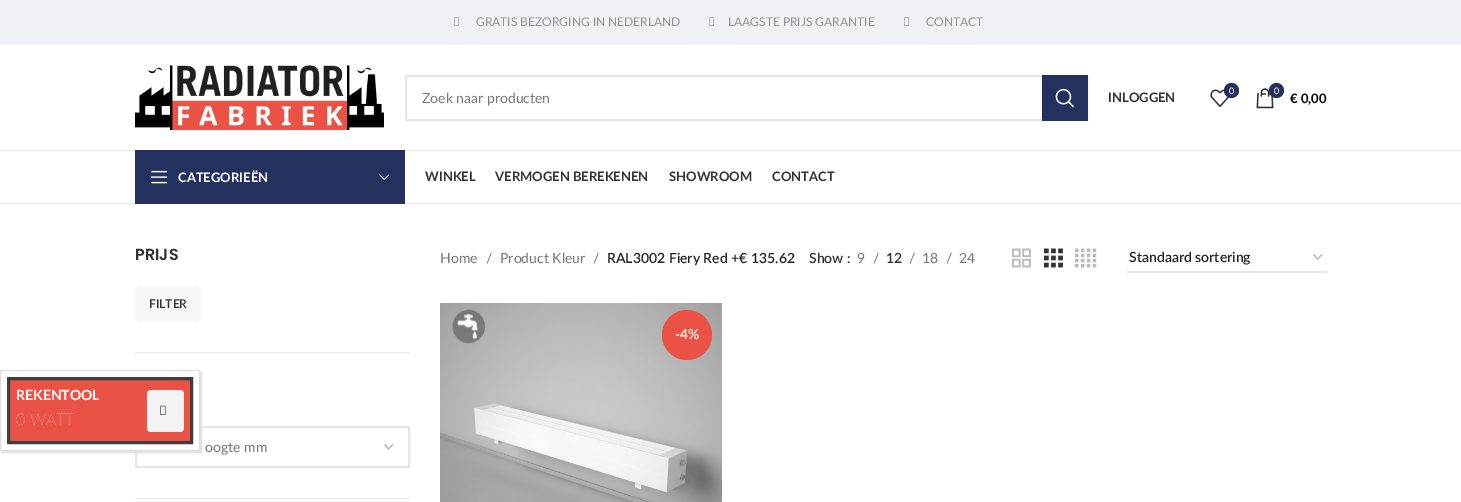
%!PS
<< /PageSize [1461 502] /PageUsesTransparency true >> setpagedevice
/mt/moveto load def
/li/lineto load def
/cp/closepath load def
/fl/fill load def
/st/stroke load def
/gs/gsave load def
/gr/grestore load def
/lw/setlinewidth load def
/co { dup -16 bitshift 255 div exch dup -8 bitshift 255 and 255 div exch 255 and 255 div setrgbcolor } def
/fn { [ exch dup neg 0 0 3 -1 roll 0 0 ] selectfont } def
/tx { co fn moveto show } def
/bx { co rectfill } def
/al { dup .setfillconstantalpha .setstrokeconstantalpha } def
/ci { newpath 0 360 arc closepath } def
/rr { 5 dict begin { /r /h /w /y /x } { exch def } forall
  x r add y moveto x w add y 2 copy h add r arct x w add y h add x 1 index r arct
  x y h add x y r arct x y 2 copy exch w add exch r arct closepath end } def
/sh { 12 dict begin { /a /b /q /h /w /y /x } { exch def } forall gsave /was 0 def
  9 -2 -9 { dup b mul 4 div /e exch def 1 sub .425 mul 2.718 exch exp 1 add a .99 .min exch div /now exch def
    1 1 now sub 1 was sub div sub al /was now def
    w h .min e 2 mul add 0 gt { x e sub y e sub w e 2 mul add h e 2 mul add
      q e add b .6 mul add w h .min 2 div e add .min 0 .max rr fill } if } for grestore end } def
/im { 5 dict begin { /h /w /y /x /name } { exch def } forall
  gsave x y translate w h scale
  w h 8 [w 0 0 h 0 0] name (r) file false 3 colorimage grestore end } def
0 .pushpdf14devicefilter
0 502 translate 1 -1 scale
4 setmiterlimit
0 0 1461 502 16#FFFFFF bx
16#BBBBBB co
1.4 lw
384.5 444.5 mt 388.5 449 li 393 444.5 li st
16#E6E6E6 co
2 lw
136 427 273 40 rectstroke
16#DDDDDD co
2 372 200 81 0 1 1 sh
16#FFFFFF co
.5 370.5 mt 199.5 370.5 li 199.5 450.5 li .5 450.5 li cp gs fl gr
16#DDDDDD co
1 lw
st
16#E95245 co
8.5 378.5 mt 191.5 378.5 li 191.5 442.5 li 8.5 442.5 li cp gs fl gr
16#3E3E3E co
3 lw
st
16#F3F3F3 co
147 390 37 42 4 rr fl
(media/1.raw) 160 405 6 10 im
0 0 1461 45 16#EEF2F6 bx
(media/2.raw) 454 17 6 9 im
(media/2.raw) 709 17 6 9 im
(media/2.raw) 904 17 6 9 im
0 150 1461 1 16#E8E8E8 bx
(media/3.raw) 135 65 249 65 im
16#E6E6E6 co
2 lw
406 76 681 44 rectstroke
1042 75 46 46 16#24305E bx
(media/4.raw) 1055 88 20 20 im
(media/5.raw) 1210 89 20 18 im
1231.5 90.5 7.5 ci fl
(media/6.raw) 1256 88 18 21 im
1276.5 90.5 7.5 ci fl
0 203 1461 1 16#E8E8E8 bx
135 150 270 54 16#24305E bx
(media/7.raw) 151 170 16 14 im
(media/8.raw) 379 174 11 6 im
135 352 275 1 16#E4E4E4 bx
16#F7F7F7 co
135 286 66 36 5 rr fl
135 498 275 1 16#E4E4E4 bx
(media/9.raw) 1012 248 19 20 im
(media/10.raw) 1044 248 19 20 im
(media/11.raw) 1075 248 22 20 im
16#BBBBBB co
1.4 lw
1313.5 254.5 mt 1317.5 259 li 1322 254.5 li st
1127 271 200 2 16#E6E6E6 bx
(media/12.raw) 440 303 282 199 im
(media/13.raw) 452 309 34 35 im
16#E95245 co
687 335 25 ci fl
(REKENTOOL) 16 400 /Lato-Bold 14 16#FFFFFF tx
(0 WATT) 16 425 /Lato-ExtraLight 16 16#FFFFFF tx
(GRATIS BEZORGING IN NEDERLAND) 476 26 /Lato-Regular 12 16#919191 tx
(LAAGSTE PRIJS GARANTIE) 728 26 /Lato-Regular 12 16#919191 tx
(CONTACT) 926 26 /Lato-Regular 12 16#919191 tx
(Zoek naar producten) 422 103 /Lato-Regular 14 16#777777 tx
(INLOGGEN) 1108 102 /Lato-Bold 13 16#333333 tx
(0) 1229 94 /Lato-Regular 9 16#FFFFFF tx
(0) 1274 94 /Lato-Regular 9 16#FFFFFF tx
(€ 0,00) 1290 103 /Lato-Bold 13 16#000000 tx
(CATEGORIEËN) 178 182 /Lato-Bold 13 16#FFFFFF tx
(WINKEL) 425 181 /Lato-Bold 13 16#333333 tx
(VERMOGEN BEREKENEN) 495 181 /Lato-Bold 13 16#333333 tx
(SHOWROOM) 669 181 /Lato-Bold 13 16#333333 tx
(CONTACT) 772 181 /Lato-Bold 13 16#333333 tx
(PRIJS) 135 260 /Poppins-SemiBold 16 16#333333 tx
(FILTER) 149 308 /Lato-SemiBold 12 16#333333 tx
(oogte mm) 205 452 /Lato-Regular 14 16#777777 tx
(Home) 440 263 /Lato-Regular 14 16#777777 tx
(/) 486 263 /Lato-Regular 14 16#777777 tx
(Product Kleur) 500 263 /Lato-Regular 14 16#777777 tx
(/) 593 263 /Lato-Regular 14 16#777777 tx
(RAL3002 Fiery Red +€ 135.62) 607 263 /Lato-SemiBold 14 16#242424 tx
(Show :) 809 263 /Lato-SemiBold 14 16#333333 tx
(9) 857 263 /Lato-Regular 14 16#777777 tx
(/) 873 263 /Lato-Regular 14 16#777777 tx
(12) 886 263 /Lato-SemiBold 14 16#333333 tx
(/) 909 263 /Lato-Regular 14 16#777777 tx
(18) 922 263 /Lato-Regular 14 16#777777 tx
(/) 946 263 /Lato-Regular 14 16#777777 tx
(24) 959 263 /Lato-Regular 14 16#777777 tx
(Standaard sortering) 1129 262 /Lato-SemiBold 14 16#242424 tx
(-4%) 675 339 /Lato-SemiBold 14 16#FFFFFF tx
.poppdf14devicefilter showpage
